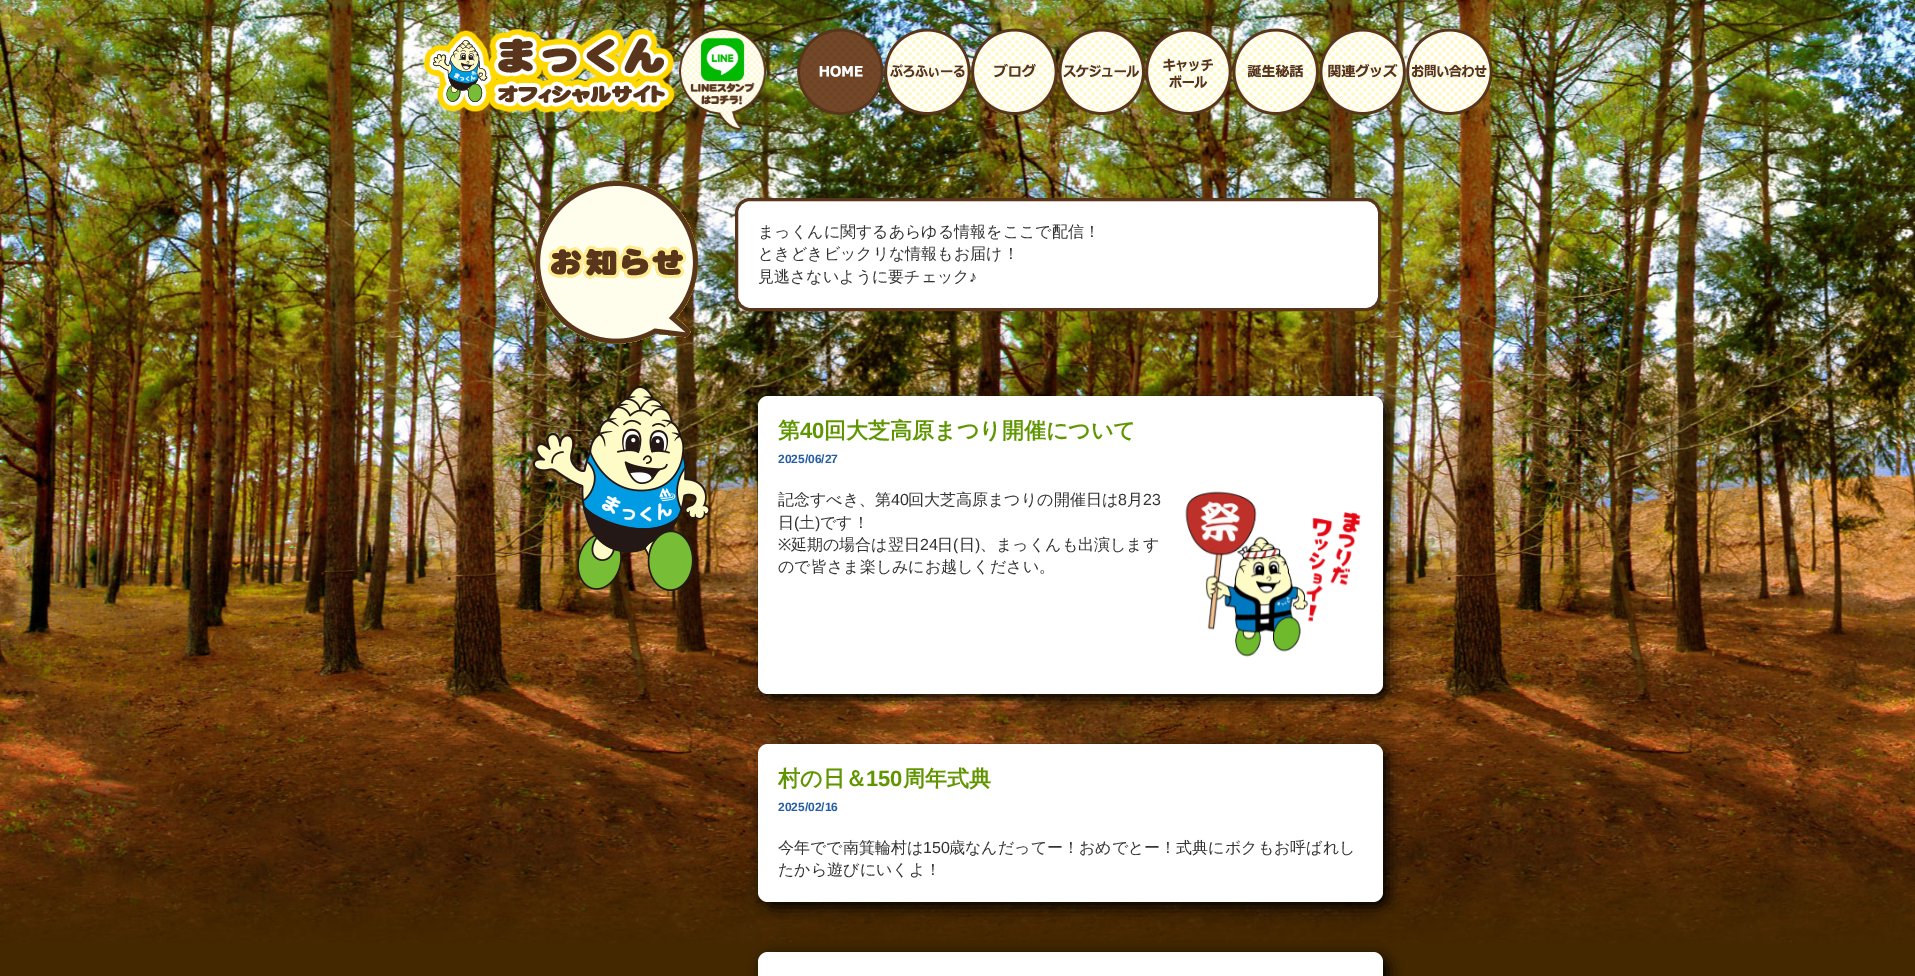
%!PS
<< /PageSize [1915 976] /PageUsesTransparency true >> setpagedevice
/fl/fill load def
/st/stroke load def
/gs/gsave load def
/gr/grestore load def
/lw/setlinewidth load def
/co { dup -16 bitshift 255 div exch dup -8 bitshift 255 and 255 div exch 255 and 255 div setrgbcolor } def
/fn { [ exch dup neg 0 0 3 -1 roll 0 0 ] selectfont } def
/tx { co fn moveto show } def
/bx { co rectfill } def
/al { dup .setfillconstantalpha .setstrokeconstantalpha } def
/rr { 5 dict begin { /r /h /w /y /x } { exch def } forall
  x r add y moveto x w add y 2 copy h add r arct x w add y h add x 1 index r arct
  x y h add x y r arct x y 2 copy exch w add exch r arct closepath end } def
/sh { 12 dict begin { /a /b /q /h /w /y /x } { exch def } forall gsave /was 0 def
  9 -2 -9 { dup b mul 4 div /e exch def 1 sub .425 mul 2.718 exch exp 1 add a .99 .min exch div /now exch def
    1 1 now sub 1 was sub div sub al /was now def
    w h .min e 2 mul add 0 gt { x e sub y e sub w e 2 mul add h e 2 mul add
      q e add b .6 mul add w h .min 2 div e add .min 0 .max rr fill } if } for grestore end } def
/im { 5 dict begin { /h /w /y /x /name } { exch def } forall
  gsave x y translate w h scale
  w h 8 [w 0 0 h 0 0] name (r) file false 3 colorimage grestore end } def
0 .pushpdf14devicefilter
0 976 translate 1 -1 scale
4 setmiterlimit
0 0 1915 976 16#442800 bx
(media/1.raw) 0 0 1915 943 im
(media/2.raw) 423 28 252 85 im
(media/3.raw) 679 28 87 102 im
(media/4.raw) 797 28 87 87 im
(media/5.raw) 884 28 87 87 im
(media/6.raw) 971 28 87 87 im
(media/7.raw) 1058 28 87 87 im
(media/8.raw) 1145 28 87 87 im
(media/9.raw) 1232 28 87 87 im
(media/10.raw) 1319 28 87 87 im
(media/11.raw) 1406 28 87 87 im
(media/12.raw) 535 181 163 163 im
16#FFFFFF co
736.5 199.5 643 110 13.5 rr gs fl gr
16#58351B co
3 lw
st
(media/13.raw) 533 386 177 205 im
16#000000 co
763 401 625 298 10 7.5 1 sh
16#FFFFFF co
758 396 625 298 10 rr fl
(media/14.raw) 1185 491 176 166 im
16#000000 co
763 749 625 158 10 7.5 1 sh
16#FFFFFF co
758 744 625 158 10 rr fl
16#000000 co
763 957 625 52 10 7.5 1 sh
16#FFFFFF co
758 952 625 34 10 rr fl
(まっくんに関するあらゆる情報をここで配信！) 758 237 /WenQuanYiZenHei-Medium 16 16#333333 tx
(ときどきビックリな情報もお届け！) 758 259 /WenQuanYiZenHei-Medium 16 16#333333 tx
(見逃さないように要チェック) 758 282 /WenQuanYiZenHei-Medium 16 16#333333 tx
(♪) 969 282 /LiberationSans-Regular 16 16#333333 tx
(第) 778 438 /WenQuanYiZenHei-Bold 22 16#5F9600 tx
(40) 800 438 /LiberationSans-Bold 22 16#5F9600 tx
(回大芝高原まつり開催について) 824 438 /WenQuanYiZenHei-Bold 22 16#5F9600 tx
(2025/06/27) 778 463 /LiberationSans-Bold 12 16#245DA3 tx
(記念すべき、第) 778 505 /WenQuanYiZenHei-Medium 16 16#333333 tx
(40) 891 505 /LiberationSans-Regular 16 16#333333 tx
(回大芝高原まつりの開催日は) 908 505 /WenQuanYiZenHei-Medium 16 16#333333 tx
(8) 1118 505 /LiberationSans-Regular 16 16#333333 tx
(月) 1127 505 /WenQuanYiZenHei-Medium 16 16#333333 tx
(23) 1143 505 /LiberationSans-Regular 16 16#333333 tx
(日) 778 528 /WenQuanYiZenHei-Medium 16 16#333333 tx
(\() 794 528 /LiberationSans-Regular 16 16#333333 tx
(土) 799 528 /WenQuanYiZenHei-Medium 16 16#333333 tx
(\)) 815 528 /LiberationSans-Regular 16 16#333333 tx
(です！) 820 528 /WenQuanYiZenHei-Medium 16 16#333333 tx
(※) 778 550 /NotoSans-Regular 16 16#333333 tx
(延期の場合は翌日) 791 550 /WenQuanYiZenHei-Medium 16 16#333333 tx
(24) 920 550 /LiberationSans-Regular 16 16#333333 tx
(日) 937 550 /WenQuanYiZenHei-Medium 16 16#333333 tx
(\() 953 550 /LiberationSans-Regular 16 16#333333 tx
(日) 959 550 /WenQuanYiZenHei-Medium 16 16#333333 tx
(\)) 975 550 /LiberationSans-Regular 16 16#333333 tx
(、まっくんも出演します) 980 550 /WenQuanYiZenHei-Medium 16 16#333333 tx
(ので皆さま楽しみにお越しください。) 778 572 /WenQuanYiZenHei-Medium 16 16#333333 tx
(村の日＆) 778 786 /WenQuanYiZenHei-Bold 22 16#5F9600 tx
(150) 866 786 /LiberationSans-Bold 22 16#5F9600 tx
(周年式典) 903 786 /WenQuanYiZenHei-Bold 22 16#5F9600 tx
(2025/02/16) 778 811 /LiberationSans-Bold 12 16#245DA3 tx
(今年でで南箕輪村は) 778 853 /WenQuanYiZenHei-Medium 16 16#333333 tx
(150) 923 853 /LiberationSans-Regular 16 16#333333 tx
(歳なんだってー！おめでとー！式典にボクもお呼ばれし) 949 853 /WenQuanYiZenHei-Medium 16 16#333333 tx
(たから遊びにいくよ！) 778 875 /WenQuanYiZenHei-Medium 16 16#333333 tx
.poppdf14devicefilter showpage
